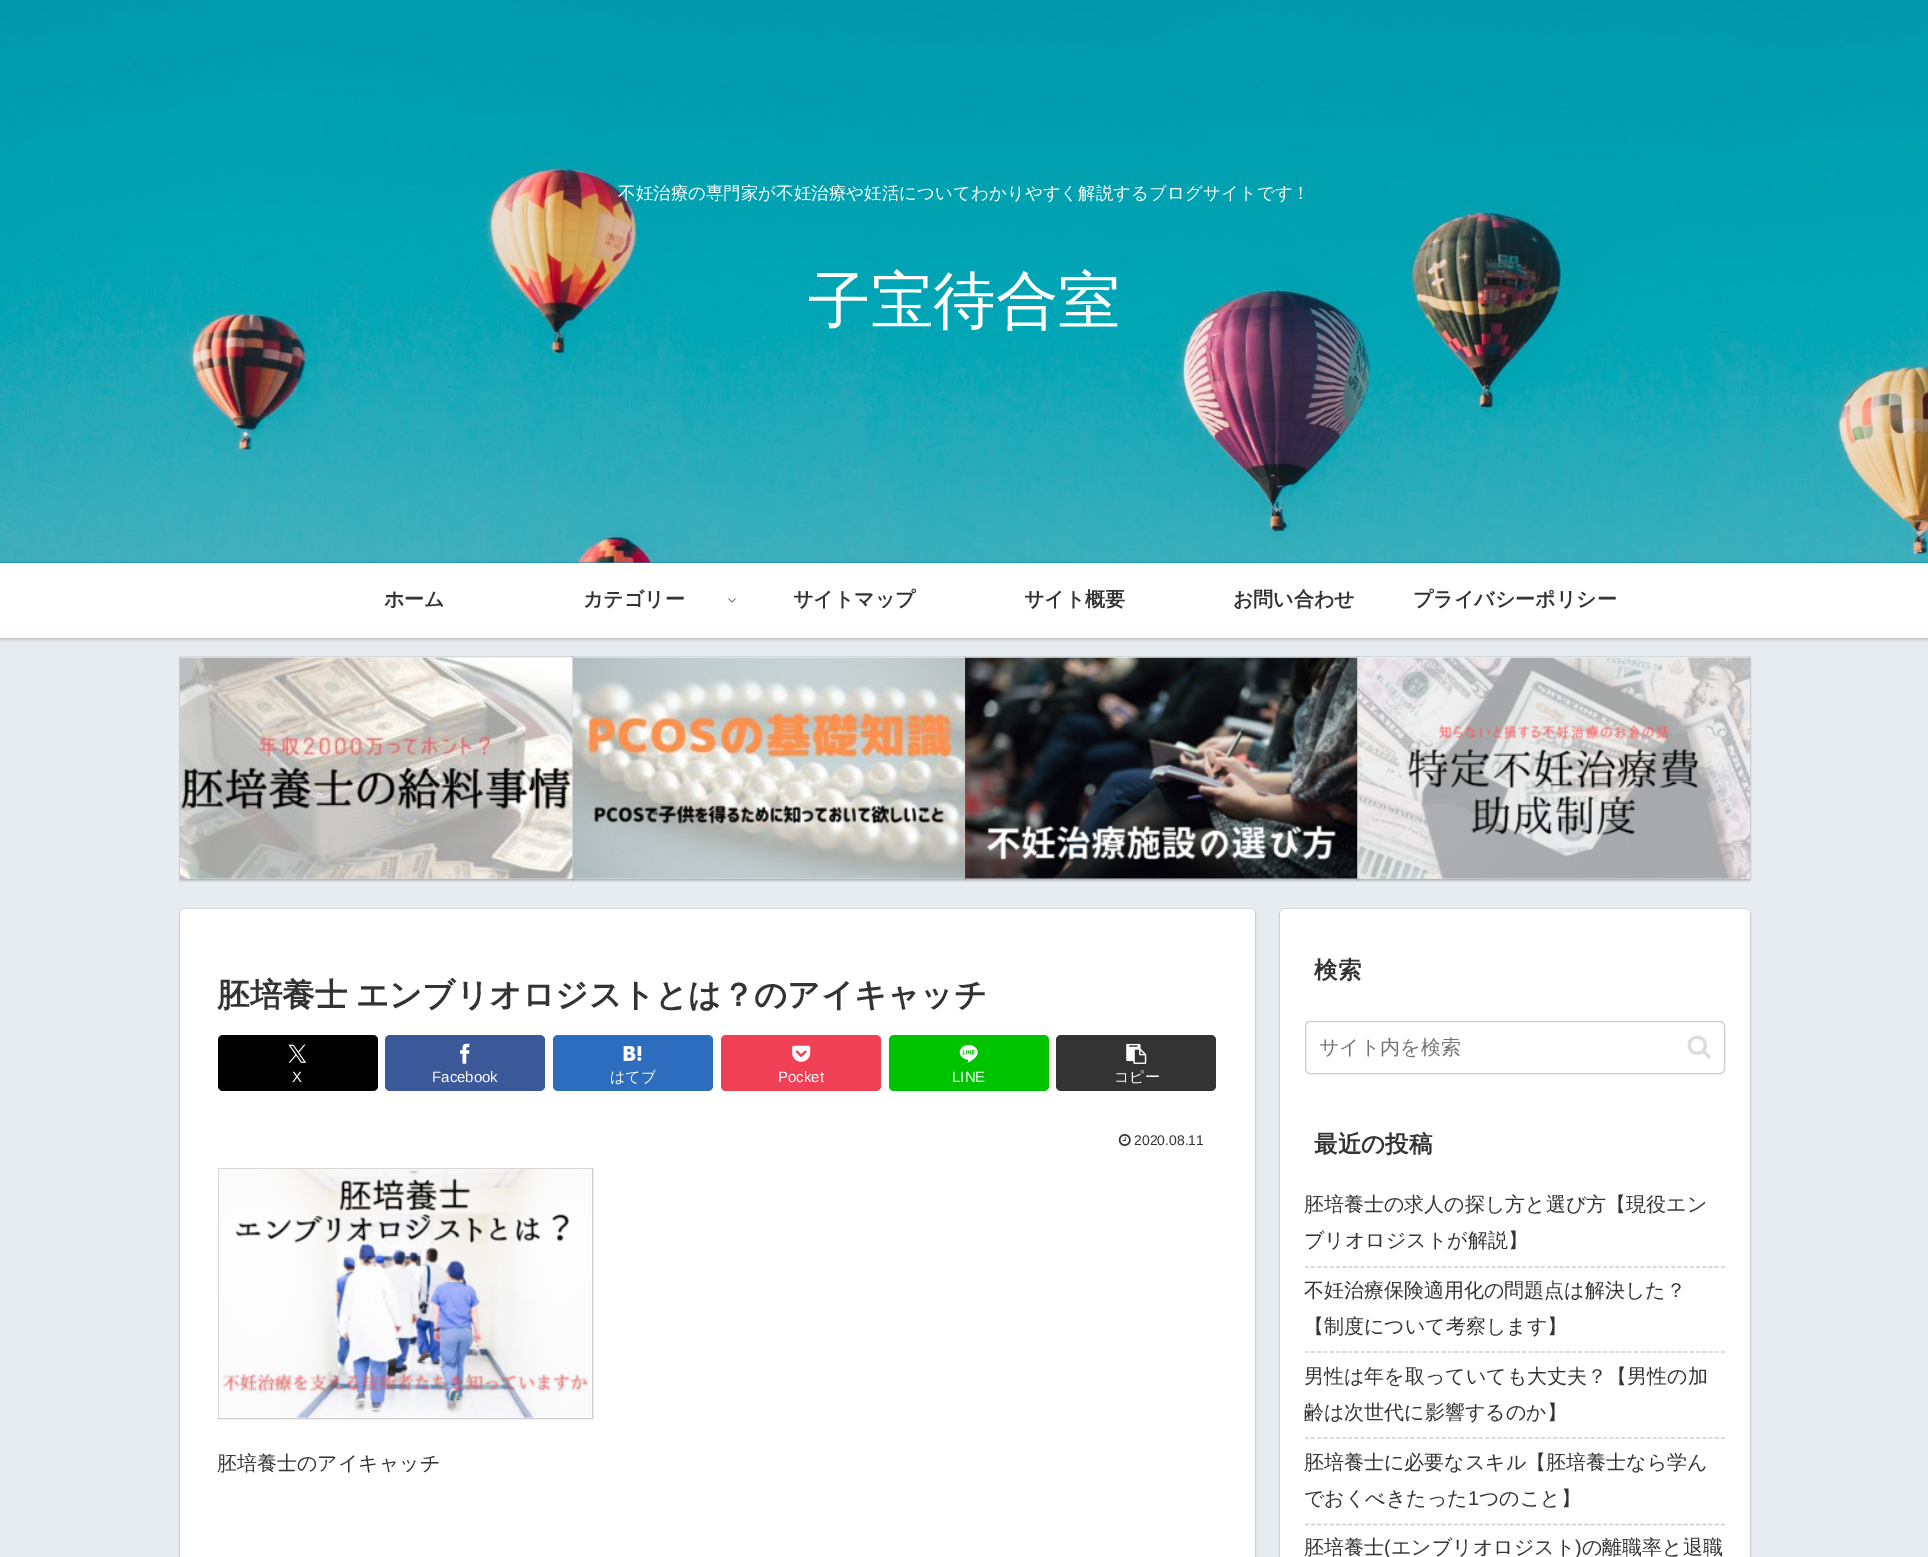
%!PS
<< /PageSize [1928 1557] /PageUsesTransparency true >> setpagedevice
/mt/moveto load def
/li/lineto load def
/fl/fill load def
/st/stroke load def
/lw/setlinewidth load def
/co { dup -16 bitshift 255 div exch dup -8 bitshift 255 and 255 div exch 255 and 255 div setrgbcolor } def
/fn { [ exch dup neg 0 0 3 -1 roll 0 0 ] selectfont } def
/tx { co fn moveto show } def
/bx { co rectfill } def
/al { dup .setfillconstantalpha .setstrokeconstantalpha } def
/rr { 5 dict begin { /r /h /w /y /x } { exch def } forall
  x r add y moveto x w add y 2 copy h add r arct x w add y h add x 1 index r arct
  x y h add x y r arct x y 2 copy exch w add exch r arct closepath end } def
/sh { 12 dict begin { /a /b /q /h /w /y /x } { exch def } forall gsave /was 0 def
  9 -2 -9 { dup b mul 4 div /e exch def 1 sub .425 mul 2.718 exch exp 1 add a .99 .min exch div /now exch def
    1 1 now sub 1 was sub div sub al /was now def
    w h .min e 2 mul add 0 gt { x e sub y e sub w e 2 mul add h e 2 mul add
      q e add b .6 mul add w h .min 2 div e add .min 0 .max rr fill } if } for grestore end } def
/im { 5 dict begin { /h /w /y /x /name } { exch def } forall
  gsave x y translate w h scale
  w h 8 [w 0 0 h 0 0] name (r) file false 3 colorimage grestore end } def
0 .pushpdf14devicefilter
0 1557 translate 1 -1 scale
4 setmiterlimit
0 0 1928 1557 16#E6ECF0 bx
0 562 1928 1 16#0095D9 bx
(media/1.raw) 0 0 1928 563 im
16#000000 co
0 564 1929 75 0 2 .25 sh
0 563 1928 75 16#FFFFFF bx
(media/2.raw) 728 598 8 5 im
16#D4D9DD co
179.5 656.5 394 223 rectstroke
16#000000 co
180 660 393 221 0 1 .16 sh
0.08 al
571.5 656.5 394 223 rectstroke
1 al
573 660 392 221 0 1 .16 sh
(media/3.raw) 180 657 393 222 im
0.08 al
964.5 656.5 394 223 rectstroke
1 al
965 660 393 221 0 1 .16 sh
(media/4.raw) 572 657 393 222 im
0.08 al
1356.5 656.5 394 223 rectstroke
1 al
1358 660 392 221 0 1 .16 sh
(media/5.raw) 965 657 393 222 im
(media/6.raw) 1357 657 393 222 im
16#D4D9DD co
179.5 908.5 1076 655 5.5 rr st
16#000000 co
180 911 1075 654 5 1 .16 sh
16#FFFFFF co
180 909 1075 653 5 rr fl
16#000000 co
218 1035 160 56 5 rr fl
(media/7.raw) 288 1044 19 19 im
16#3B5998 co
385 1035 160 56 5 rr fl
(media/8.raw) 460 1043 10 21 im
16#2C6EBD co
553 1035 160 56 5 rr fl
(media/9.raw) 623 1046 19 15 im
16#EF4056 co
721 1035 160 56 5 rr fl
(media/10.raw) 792 1045 19 17 im
16#00C300 co
889 1035 160 56 5 rr fl
(media/11.raw) 959 1045 19 18 im
16#333333 co
1056 1035 160 56 5 rr fl
(media/12.raw) 1126 1043 21 21 im
(media/13.raw) 1118 1134 13 12 im
16#CCCCCC co
218.5 1168.5 374 250 rectstroke
(media/14.raw) 218 1168 373 250 im
16#D4D9DD co
1279.5 908.5 471 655 5.5 rr st
16#000000 co
1280 911 470 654 5 1 .16 sh
16#FFFFFF co
1280 909 470 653 5 rr fl
16#CCCCCC co
1305.5 1021.5 419 52 4.5 rr st
(media/15.raw) 1687 1035 24 24 im
1.2 lw
[3.75 2.46] 0 setdash
1305 1267 mt 1725 1267 li st
1305 1352 mt 1725 1352 li st
1305 1438 mt 1725 1438 li st
1305 1524.5 mt 1725 1524.5 li st
(不妊治療の専門家が不妊治療や妊活についてわかりやすく解説するブログサイトです！) 618 199 /WenQuanYiZenHei-Medium 17.5 16#FFFFFF tx
(子宝待合室) 808 322 /WenQuanYiZenHei-Medium 62.5 16#FFFFFF tx
(ホーム) 384 606 /WenQuanYiZenHei-Bold 20 16#333333 tx
(カテゴリー) 583 606 /WenQuanYiZenHei-Bold 20 16#333333 tx
(サイトマップ) 793 606 /WenQuanYiZenHei-Bold 20 16#333333 tx
(サイト概要) 1024 606 /WenQuanYiZenHei-Bold 20 16#333333 tx
(お問い合わせ) 1233 606 /WenQuanYiZenHei-Bold 20 16#333333 tx
(プライバシーポリシー) 1413 606 /WenQuanYiZenHei-Bold 20 16#333333 tx
/WenQuanYiZenHei-Bold 32.5 fn
217 1006 mt -1 0 32 (胚培養士 エンブリオロジストとは？のアイキャッチ) widthshow
(X) 292 1082 /LiberationSans-Regular 15 16#FFFFFF tx
(Facebook) 432 1082 /LiberationSans-Regular 15 16#FFFFFF tx
(はてブ) 610 1082 /WenQuanYiZenHei-Medium 15 16#FFFFFF tx
(Pocket) 778 1082 /LiberationSans-Regular 15 16#FFFFFF tx
(LINE) 952 1082 /LiberationSans-Regular 15 16#FFFFFF tx
(コピー) 1114 1082 /WenQuanYiZenHei-Medium 15 16#FFFFFF tx
(2020.08.11) 1134 1145 /LiberationSans-Regular 14 16#333333 tx
(胚培養士のアイキャッチ) 217 1470 /WenQuanYiZenHei-Medium 20 16#333333 tx
(検索) 1314 978 /WenQuanYiZenHei-Bold 23.5 16#333333 tx
(サイト内を検索) 1319 1054 /WenQuanYiZenHei-Medium 20 16#757575 tx
(最近の投稿) 1314 1152 /WenQuanYiZenHei-Bold 23.5 16#333333 tx
(胚培養士の求人の探し方と選び方【現役エン) 1304 1211 /WenQuanYiZenHei-Medium 20 16#333333 tx
(ブリオロジストが解説】) 1304 1247 /WenQuanYiZenHei-Medium 20 16#333333 tx
(不妊治療保険適用化の問題点は解決した？) 1304 1297 /WenQuanYiZenHei-Medium 20 16#333333 tx
(【制度について考察します】) 1304 1333 /WenQuanYiZenHei-Medium 20 16#333333 tx
(男性は年を取っていても大丈夫？【男性の加) 1304 1383 /WenQuanYiZenHei-Medium 20 16#333333 tx
(齢は次世代に影響するのか】) 1304 1419 /WenQuanYiZenHei-Medium 20 16#333333 tx
(胚培養士に必要なスキル【胚培養士なら学ん) 1304 1469 /WenQuanYiZenHei-Medium 20 16#333333 tx
(でおくべきたった) 1304 1505 /WenQuanYiZenHei-Medium 20 16#333333 tx
(1) 1468 1505 /LiberationSans-Regular 20 16#333333 tx
(つのこと】) 1479 1505 /WenQuanYiZenHei-Medium 20 16#333333 tx
(胚培養士) 1304 1554 /WenQuanYiZenHei-Medium 20 16#333333 tx
(\() 1384 1554 /LiberationSans-Regular 20 16#333333 tx
(エンブリオロジスト) 1391 1554 /WenQuanYiZenHei-Medium 20 16#333333 tx
(\)) 1575 1554 /LiberationSans-Regular 20 16#333333 tx
(の離職率と退職) 1582 1554 /WenQuanYiZenHei-Medium 20 16#333333 tx
.poppdf14devicefilter showpage
